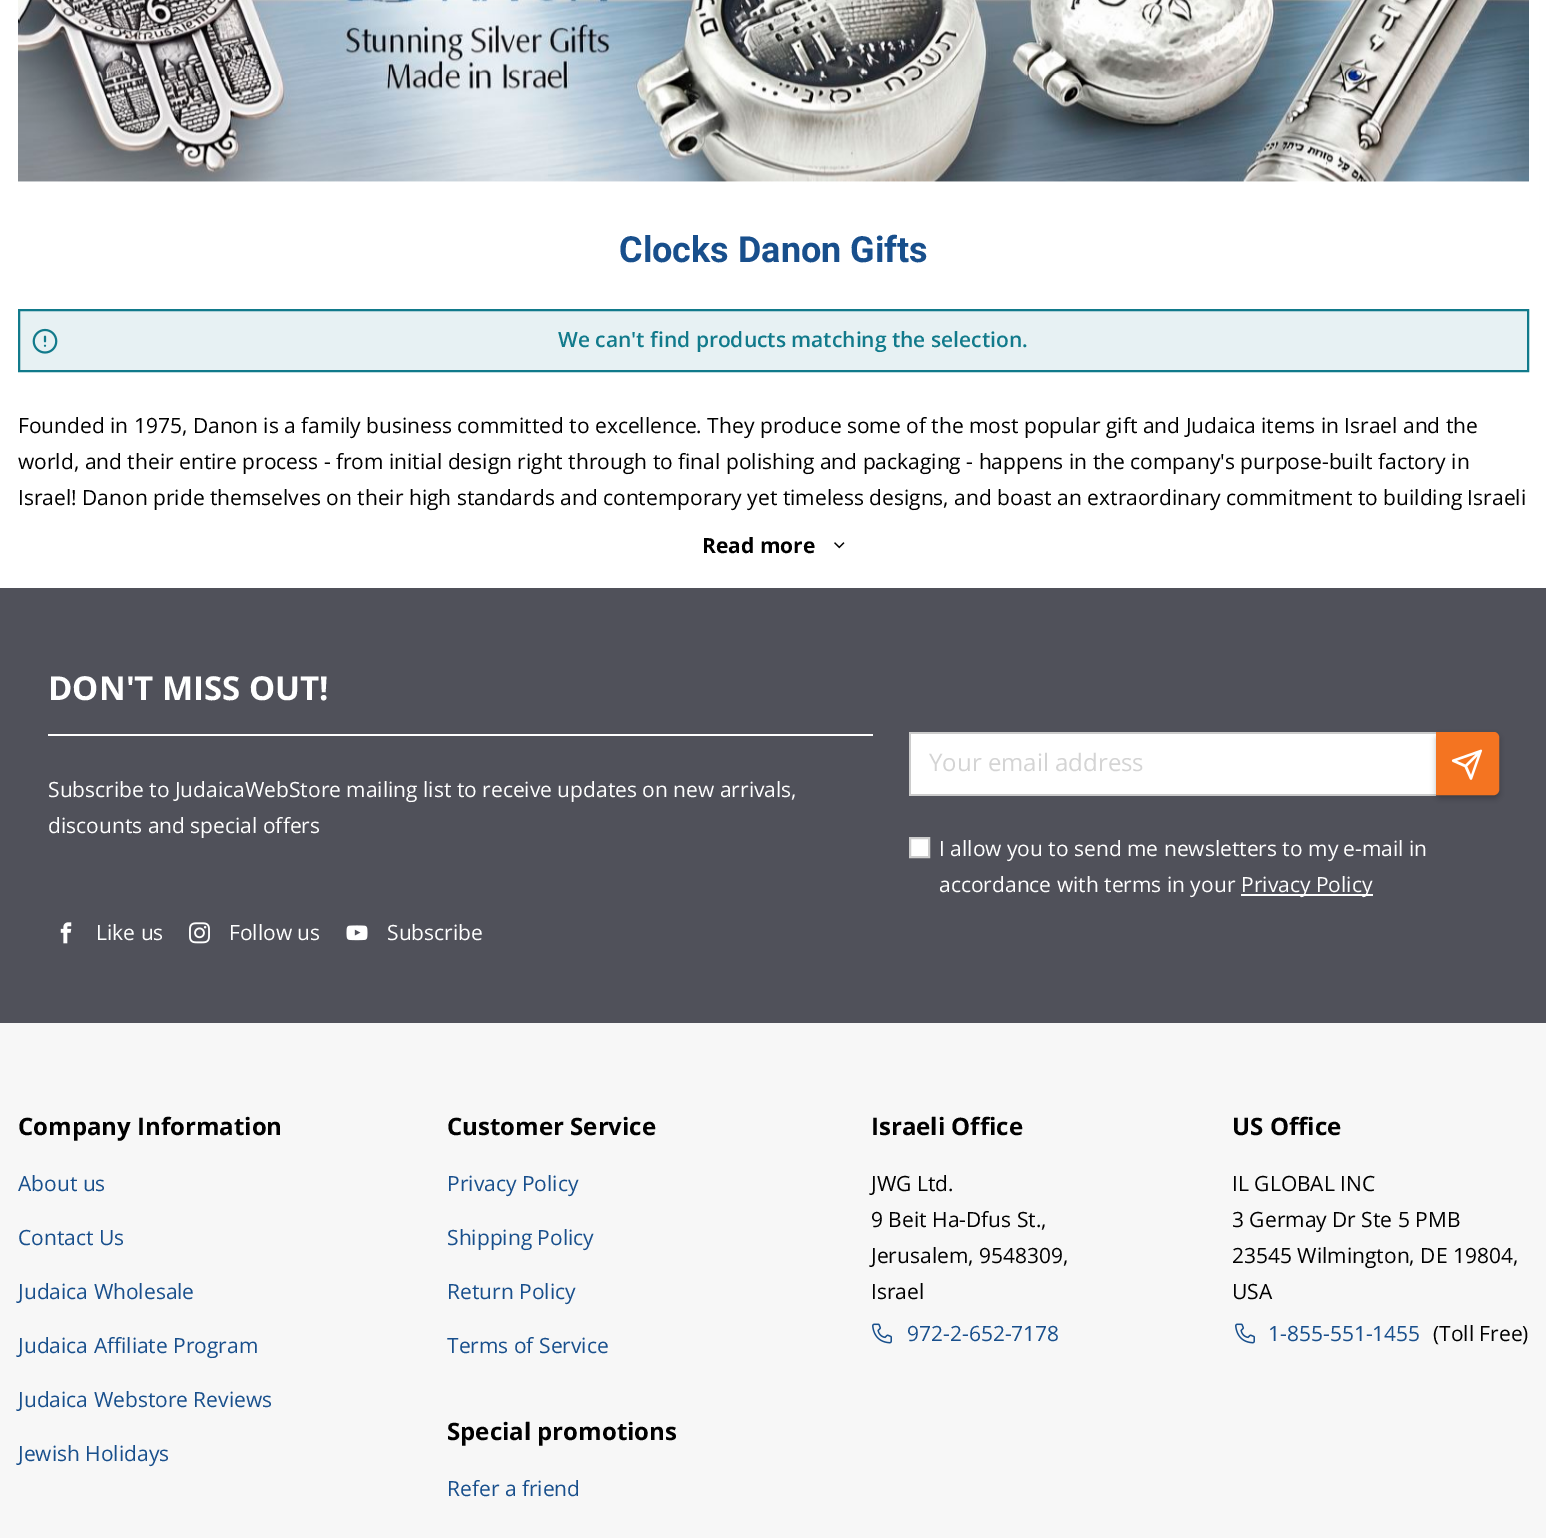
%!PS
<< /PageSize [1546 1538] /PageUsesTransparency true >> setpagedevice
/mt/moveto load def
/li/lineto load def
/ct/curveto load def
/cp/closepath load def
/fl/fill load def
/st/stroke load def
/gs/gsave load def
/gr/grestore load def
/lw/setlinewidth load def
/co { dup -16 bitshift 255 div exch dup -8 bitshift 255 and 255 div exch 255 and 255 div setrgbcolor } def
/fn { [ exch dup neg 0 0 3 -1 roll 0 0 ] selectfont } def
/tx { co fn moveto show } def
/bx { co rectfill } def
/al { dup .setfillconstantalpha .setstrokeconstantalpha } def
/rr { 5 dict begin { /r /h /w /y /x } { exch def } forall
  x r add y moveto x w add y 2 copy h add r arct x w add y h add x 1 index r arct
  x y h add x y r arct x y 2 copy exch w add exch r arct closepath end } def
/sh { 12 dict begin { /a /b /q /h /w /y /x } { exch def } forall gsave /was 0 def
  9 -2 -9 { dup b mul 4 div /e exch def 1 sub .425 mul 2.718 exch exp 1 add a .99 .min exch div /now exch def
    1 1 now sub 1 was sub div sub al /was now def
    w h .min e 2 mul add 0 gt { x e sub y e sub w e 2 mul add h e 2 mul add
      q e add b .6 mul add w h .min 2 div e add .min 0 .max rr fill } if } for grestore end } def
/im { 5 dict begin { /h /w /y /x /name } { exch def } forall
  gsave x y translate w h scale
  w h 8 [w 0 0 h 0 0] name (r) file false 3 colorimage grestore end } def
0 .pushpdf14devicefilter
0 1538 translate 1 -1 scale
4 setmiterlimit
0 0 1546 1538 16#FFFFFF bx
(media/1.raw) 18 0 1511 182 im
16#E7F1F3 co
19 310 mt 1528 310 li 1528 371 li 19 371 li cp gs fl gr
16#117A8B co
2 lw
st
(media/2.raw) 32 328 26 26 im
(media/3.raw) 834 542 11 7 im
0 1023 1546 515 16#F7F7F7 bx
0 588 1546 435 16#50515A bx
48 734 825 2 16#FFFFFF bx
911 734 525 60 16#FFFFFF bx
909 732 527 2 16#CCCCCC bx
909 794 527 2 16#CCCCCC bx
909 732 2 63 16#CCCCCC bx
16#000000 co
1436 735 63 63 5 3 .25 sh
16#F47421 co
1437 733 mt 1494 733 li 1496 733 1498 735 1498 737 ct 1498 790 li 1498 792 1496 794 1494 794 ct 1437 794 li cp gs fl gr
st
(media/4.raw) 1451 749 32 31 im
16#FFFFFF co
910 838 mt 929 838 li 929 857 li 910 857 li cp gs fl gr
16#CCCCCC co
st
1241 894 132 2 16#FFFFFF bx
(media/5.raw) 60 922 12 22 im
(media/6.raw) 189 922 21 22 im
(media/7.raw) 346 925 22 16 im
(media/8.raw) 872 1323 20 21 im
(media/8.raw) 1235 1323 20 21 im
(Clocks Danon Gifts) 619 262 /Roboto-Bold 36 16#184F8C tx
(We can't find products matching the selection.) 558 347 /OpenSans-SemiBold 21 16#117A8B tx
(Founded in 1975, Danon is a family business committed to excellence. They produce some of the most popular gift and Judaica items in Israel and the) 18 433 /OpenSans-Regular 21 16#000000 tx
(world, and their entire process - from initial design right through to final polishing and packaging - happens in the company's purpose-built factory in) 18 469 /OpenSans-Regular 21 16#000000 tx
(Israel! Danon pride themselves on their high standards and contemporary yet timeless designs, and boast an extraordinary commitment to building Israeli) 18 505 /OpenSans-Regular 21 16#000000 tx
(Read more) 702 553 /OpenSans-Bold 21 16#000000 tx
(DON'T MISS OUT!) 48 700 /OpenSans-Bold 33 16#FFFFFF tx
(Subscribe to JudaicaWebStore mailing list to receive updates on new arrivals,) 48 797 /OpenSans-Regular 21 16#FFFFFF tx
(discounts and special offers) 48 833 /OpenSans-Regular 21 16#FFFFFF tx
(Your email address) 929 771 /OpenSans-Regular 24 16#D4D4D4 tx
(I allow you to send me newsletters to my e-mail in) 939 856 /OpenSans-Regular 21 16#FFFFFF tx
(accordance with terms in your) 939 892 /OpenSans-Regular 21 16#FFFFFF tx
(Privacy Policy) 1241 892 /OpenSans-Regular 21 16#FFFFFF tx
(Like us) 96 940 /OpenSans-Regular 21 16#FFFFFF tx
(Follow us) 229 940 /OpenSans-Regular 21 16#FFFFFF tx
(Subscribe) 387 940 /OpenSans-Regular 21 16#FFFFFF tx
(Company Information) 18 1135 /OpenSans-Bold 24 16#000000 tx
(About us) 18 1191 /OpenSans-Regular 21 16#184F8C tx
(Contact Us) 18 1245 /OpenSans-Regular 21 16#184F8C tx
(Judaica Wholesale) 18 1299 /OpenSans-Regular 21 16#184F8C tx
(Judaica Affiliate Program) 18 1353 /OpenSans-Regular 21 16#184F8C tx
(Judaica Webstore Reviews) 18 1407 /OpenSans-Regular 21 16#184F8C tx
(Jewish Holidays) 18 1461 /OpenSans-Regular 21 16#184F8C tx
(Customer Service) 447 1135 /OpenSans-Bold 24 16#000000 tx
(Privacy Policy) 447 1191 /OpenSans-Regular 21 16#184F8C tx
(Shipping Policy) 447 1245 /OpenSans-Regular 21 16#184F8C tx
(Return Policy) 447 1299 /OpenSans-Regular 21 16#184F8C tx
(Terms of Service) 447 1353 /OpenSans-Regular 21 16#184F8C tx
(Special promotions) 447 1440 /OpenSans-Bold 24 16#000000 tx
(Refer a friend) 447 1496 /OpenSans-Regular 21 16#184F8C tx
(Israeli Office) 871 1135 /OpenSans-Bold 24 16#000000 tx
(JWG Ltd.) 871 1191 /OpenSans-Regular 21 16#000000 tx
(9 Beit Ha-Dfus St.,) 871 1227 /OpenSans-Regular 21 16#000000 tx
(Jerusalem, 9548309,) 871 1263 /OpenSans-Regular 21 16#000000 tx
(Israel) 871 1299 /OpenSans-Regular 21 16#000000 tx
(972-2-652-7178) 907 1341 /OpenSans-Regular 21 16#184F8C tx
(US Office) 1232 1135 /OpenSans-Bold 24 16#000000 tx
(IL GLOBAL INC) 1232 1191 /OpenSans-Regular 21 16#000000 tx
(3 Germay Dr Ste 5 PMB) 1232 1227 /OpenSans-Regular 21 16#000000 tx
(23545 Wilmington, DE 19804,) 1232 1263 /OpenSans-Regular 21 16#000000 tx
(USA) 1232 1299 /OpenSans-Regular 21 16#000000 tx
(1-855-551-1455) 1268 1341 /OpenSans-Regular 21 16#184F8C tx
(\(Toll Free\)) 1433 1341 /OpenSans-Regular 21 16#000000 tx
.poppdf14devicefilter showpage
